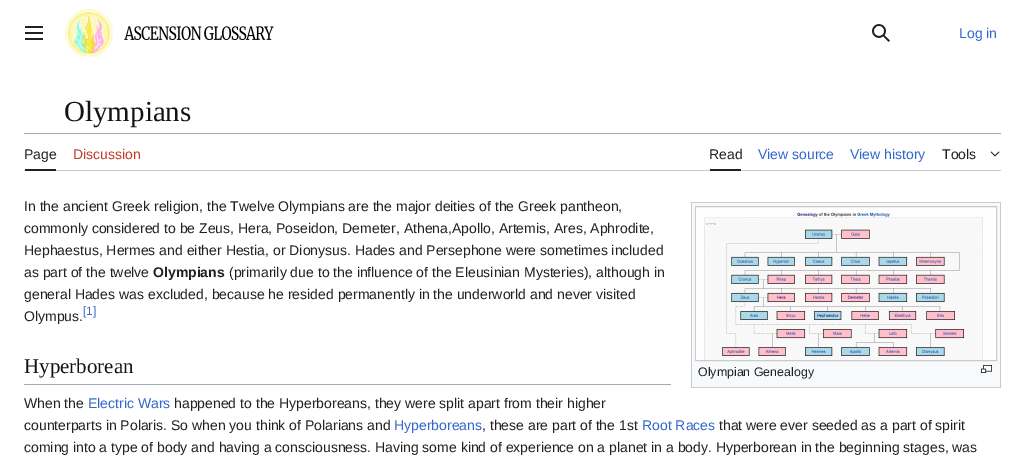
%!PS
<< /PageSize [1025 463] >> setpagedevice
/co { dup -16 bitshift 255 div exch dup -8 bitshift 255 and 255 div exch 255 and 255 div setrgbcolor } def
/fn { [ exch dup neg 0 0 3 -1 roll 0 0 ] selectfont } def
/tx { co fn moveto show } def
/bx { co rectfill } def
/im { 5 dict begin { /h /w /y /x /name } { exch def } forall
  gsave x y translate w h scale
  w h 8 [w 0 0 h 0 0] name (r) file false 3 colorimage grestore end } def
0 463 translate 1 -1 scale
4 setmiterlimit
0 0 1025 463 16#FFFFFF bx
(media/1.raw) 25 26 18 14 im
(media/2.raw) 65 9 48 48 im
(media/3.raw) 124 26 150 14 im
(media/4.raw) 872 24 18 18 im
24 133 977 1 16#A2A9B1 bx
24 170 977 1 16#C8CCD1 bx
25 169 31 2 16#202122 bx
710 169 31 2 16#202122 bx
(media/5.raw) 990 151 10 6 im
24 384 647 1 16#A2A9B1 bx
692 203 308 184 16#F8F9FA bx
691 202 310 1 16#C8CCD1 bx
691 387 310 1 16#C8CCD1 bx
1000 202 1 186 16#C8CCD1 bx
691 202 1 186 16#C8CCD1 bx
695.5 206.5 301 154 rectstroke
(media/6.raw) 696 207 300 153 im
(media/7.raw) 981 365 11 8 im
(Log in) 959 38 /LiberationSans-Regular 14 16#3366CC tx
(Olympians) 64 121 /LiberationSerif-Regular 29 16#101418 tx
(Page) 24 159 /LiberationSans-Regular 14 16#202122 tx
(Discussion) 73 159 /LiberationSans-Regular 14 16#BF3C2C tx
(Read) 709 159 /LiberationSans-Regular 14 16#202122 tx
(View source) 758 159 /LiberationSans-Regular 14 16#3366CC tx
(View history) 850 159 /LiberationSans-Regular 14 16#3366CC tx
(Tools) 942 159 /LiberationSans-Regular 14 16#202122 tx
(In the ancient Greek religion, the Twelve Olympians are the major deities of the Greek pantheon,) 24 211 /LiberationSans-Regular 14 16#202122 tx
(commonly considered to be Zeus, Hera, Poseidon, Demeter, Athena,Apollo, Artemis, Ares, Aphrodite,) 24 233 /LiberationSans-Regular 14 16#202122 tx
(Hephaestus, Hermes and either Hestia, or Dionysus. Hades and Persephone were sometimes included) 24 255 /LiberationSans-Regular 14 16#202122 tx
(as part of the twelve) 24 277 /LiberationSans-Regular 14 16#202122 tx
(Olympians) 153 277 /LiberationSans-Bold 14 16#202122 tx
(\(primarily due to the influence of the Eleusinian Mysteries\), although in) 229 277 /LiberationSans-Regular 14 16#202122 tx
(general Hades was excluded, because he resided permanently in the underworld and never visited) 24 299 /LiberationSans-Regular 14 16#202122 tx
(Olympus.) 24 321 /LiberationSans-Regular 14 16#202122 tx
([1]) 83 315 /LiberationSans-Regular 12 16#3366CC tx
(Hyperborean) 24 373 /LiberationSerif-Regular 21 16#101418 tx
(Olympian Genealogy) 698 376 /LiberationSans-Regular 12.4 16#202122 tx
(When the) 24 408 /LiberationSans-Regular 14 16#202122 tx
(Electric Wars) 88 408 /LiberationSans-Regular 14 16#3366CC tx
(happened to the Hyperboreans, they were split apart from their higher) 174 408 /LiberationSans-Regular 14 16#202122 tx
(counterparts in Polaris. So when you think of Polarians and) 24 430 /LiberationSans-Regular 14 16#202122 tx
(Hyperboreans) 394 430 /LiberationSans-Regular 14 16#3366CC tx
(, these are part of the 1st) 482 430 /LiberationSans-Regular 14 16#202122 tx
(Root Races) 642 430 /LiberationSans-Regular 14 16#3366CC tx
(that were ever seeded as a part of spirit) 719 430 /LiberationSans-Regular 14 16#202122 tx
(coming into a type of body and having a consciousness. Having some kind of experience on a planet in a body. Hyperborean in the beginning stages, was) 24 452 /LiberationSans-Regular 14 16#202122 tx
showpage
